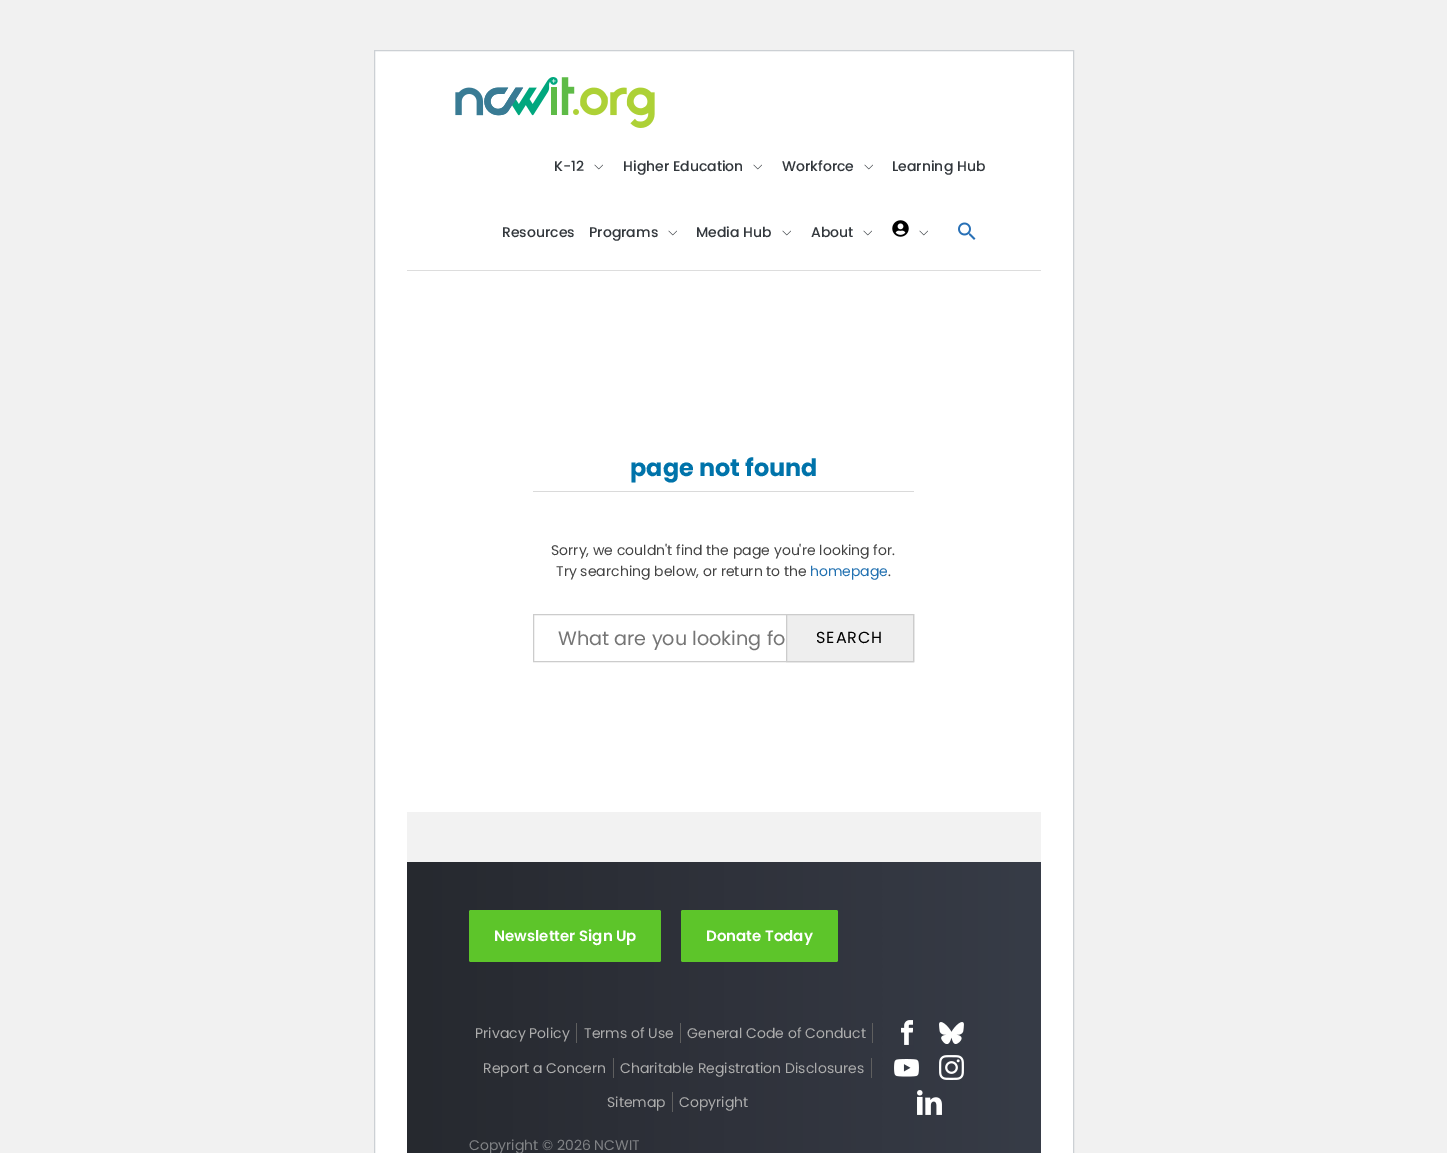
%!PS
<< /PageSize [1447 1153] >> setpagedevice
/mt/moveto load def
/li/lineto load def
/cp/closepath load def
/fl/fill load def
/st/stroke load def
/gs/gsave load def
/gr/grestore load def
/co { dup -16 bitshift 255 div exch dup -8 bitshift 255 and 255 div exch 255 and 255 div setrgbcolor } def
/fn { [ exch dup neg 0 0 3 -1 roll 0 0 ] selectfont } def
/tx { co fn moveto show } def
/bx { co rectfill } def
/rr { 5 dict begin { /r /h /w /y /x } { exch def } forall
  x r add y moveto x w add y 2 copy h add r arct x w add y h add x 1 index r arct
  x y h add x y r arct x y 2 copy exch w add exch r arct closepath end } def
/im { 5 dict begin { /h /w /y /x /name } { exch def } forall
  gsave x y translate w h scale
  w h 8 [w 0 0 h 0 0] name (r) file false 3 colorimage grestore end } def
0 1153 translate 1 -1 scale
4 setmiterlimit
0 0 1447 1153 16#F1F1F1 bx
16#FFFFFF co
374.5 50.5 mt 1073.5 50.5 li 1073.5 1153.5 li 374.5 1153.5 li cp gs fl gr
16#CCD0D4 co
st
407 270 634 1 16#DDDDDD bx
(media/1.raw) 455 77 200 51 im
(media/2.raw) 594 164 9 6 im
(media/2.raw) 753 164 9 6 im
(media/2.raw) 864 164 9 6 im
(media/2.raw) 668 230 9 6 im
(media/2.raw) 782 230 9 6 im
(media/2.raw) 863 230 9 6 im
(media/3.raw) 892 220 17 17 im
(media/2.raw) 919 230 9 6 im
(media/4.raw) 958 222 18 18 im
533 491 381 1 16#DADADA bx
16#CCCCCC co
533.5 614.5 380 47 rectstroke
16#EEEEEE co
786.5 614.5 mt 913.5 614.5 li 913.5 661.5 li 786.5 661.5 li cp gs fl gr
16#CCCCCC co
st
407 812 634 50 16#F2F2F2 bx
gs 407 862 mt 1041 862 li 1041 1153 li 407 1153 li cp clip newpath
<< /ShadingType 2 /ColorSpace /DeviceRGB /Coords [407 1030 1041 1030] /Extend [true true] /Function << /FunctionType 2 /Domain [0 1] /C0 [.149 .161 .184] /C1 [.216 .235 .278] /N 1 >> >> shfill gr
16#5DC52A co
469 910 192 52 2 rr fl
681 910 157 52 2 rr fl
576 1023 1 20 16#5F5F5F bx
680 1023 1 20 16#5F5F5F bx
872 1023 1 20 16#5F5F5F bx
613 1058 1 20 16#5F5F5F bx
871 1058 1 20 16#5F5F5F bx
672 1092 1 20 16#5F5F5F bx
(media/5.raw) 901 1020 12 25 im
(media/6.raw) 939 1022 25 22 im
(media/7.raw) 894 1059 25 18 im
(media/8.raw) 939 1055 25 25 im
(media/9.raw) 917 1090 25 25 im
(K-12) 554 171 /Poppins-Medium 14 16#32373C tx
(Higher Education) 623 171 /Poppins-Medium 14 16#32373C tx
(Workforce) 782 171 /Poppins-Medium 14 16#32373C tx
(Learning Hub) 892 171 /Poppins-Medium 14 16#32373C tx
(Resources) 502 237 /Poppins-Medium 14 16#32373C tx
(Programs) 589 237 /Poppins-Medium 14 16#32373C tx
(Media Hub) 696 237 /Poppins-Medium 14 16#32373C tx
(About) 811 237 /Poppins-Medium 14 16#32373C tx
(page not found) 630 476 /Poppins-Bold 24 16#0073AA tx
(Sorry, we couldn't find the page you're looking for.) 551 555 /Poppins-Regular 14 16#444444 tx
(Try searching below, or return to the) 556 576 /Poppins-Regular 14 16#444444 tx
(homepage) 810 576 /Poppins-Regular 14 16#2271B1 tx
(.) 888 576 /Poppins-Regular 14 16#444444 tx
(What are you looking fo) 558 645 /Poppins-Regular 19.25 16#757575 tx
/Poppins-Regular 16 fn
16#000000 co
816 643 mt 1 0 (SEARCH) ashow
(Newsletter Sign Up) 494 941 /Poppins-SemiBold 15 16#FFFFFF tx
(Donate Today) 706 941 /Poppins-SemiBold 15 16#FFFFFF tx
(Privacy Policy) 475 1038 /Poppins-Regular 14 16#ACACAC tx
(Terms of Use) 584 1038 /Poppins-Regular 14 16#ACACAC tx
(General Code of Conduct) 687 1038 /Poppins-Regular 14 16#ACACAC tx
(Report a Concern) 483 1073 /Poppins-Regular 14 16#ACACAC tx
(Charitable Registration Disclosures) 620 1073 /Poppins-Regular 14 16#ACACAC tx
(Sitemap) 607 1107 /Poppins-Regular 14 16#ACACAC tx
(Copyright) 679 1107 /Poppins-Regular 14 16#ACACAC tx
(Copyright © 2026 NCWIT) 469 1150 /Poppins-Regular 14 16#808285 tx
showpage
